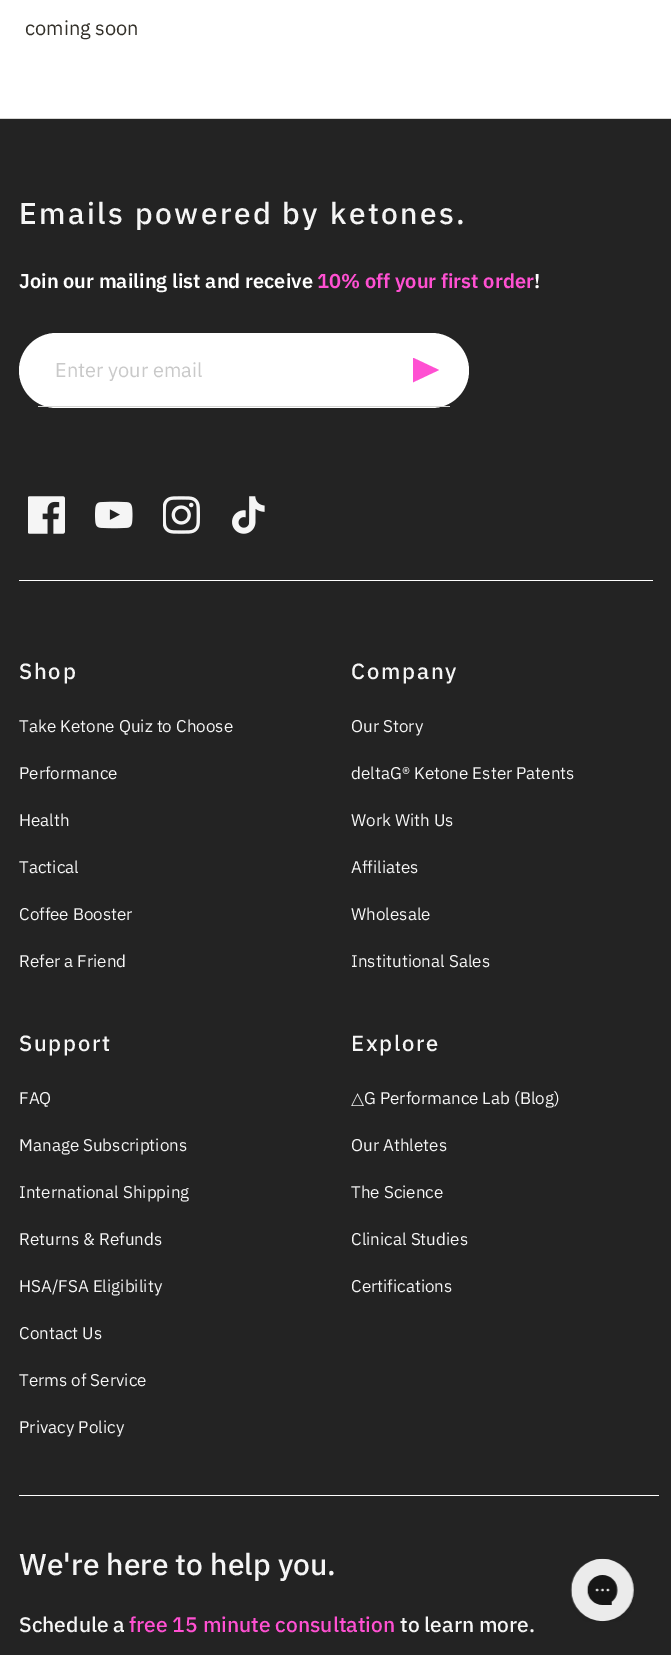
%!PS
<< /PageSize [671 1655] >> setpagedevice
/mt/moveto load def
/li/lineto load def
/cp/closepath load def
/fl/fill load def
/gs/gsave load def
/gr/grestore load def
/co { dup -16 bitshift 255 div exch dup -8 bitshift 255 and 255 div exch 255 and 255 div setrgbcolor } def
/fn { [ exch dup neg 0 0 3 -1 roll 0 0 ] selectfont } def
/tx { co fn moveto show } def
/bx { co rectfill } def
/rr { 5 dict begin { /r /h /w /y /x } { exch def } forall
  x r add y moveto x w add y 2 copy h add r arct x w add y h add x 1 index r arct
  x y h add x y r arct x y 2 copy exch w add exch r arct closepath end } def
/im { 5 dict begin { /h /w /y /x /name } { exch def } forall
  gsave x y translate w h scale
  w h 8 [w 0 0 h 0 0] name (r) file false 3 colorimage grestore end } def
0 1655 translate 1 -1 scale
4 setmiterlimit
0 0 671 1655 16#FFFFFF bx
0 119 671 1536 16#232323 bx
0 118 671 1 16#D6D6D4 bx
16#FFFFFF co
19 333 450 75 37.5 rr fl
38 406 412 1 16#D6D6D4 bx
gs
413 358 26 25 rectclip
16#FF50D2 co
439 370 mt 412.5 382.5 li 412.5 357.5 li cp fl
gr
(media/1.raw) 28 496 37 38 im
(media/2.raw) 95 501 38 28 im
(media/3.raw) 163 496 37 38 im
(media/4.raw) 232 496 33 38 im
19 580 634 1 16#FFFFFF bx
19 1495 640 1 16#FFFFFF bx
(media/5.raw) 570 1558 64 64 im
(coming soon) 25 35 /IBMPlexSans-Regular 20 16#333029 tx
/IBMPlexSans-Medium 30 fn
16#F5F5F5 co
19 224 mt 2.4 0 (Emails powered by ketones.) ashow
(Join our mailing list and receive) 19 288 /IBMPlexSans-SemiBold 20 16#FFFFFF tx
(10% off your first order) 317 288 /IBMPlexSans-SemiBold 20 16#FF50D2 tx
(!) 534 288 /IBMPlexSans-SemiBold 20 16#FFFFFF tx
(Enter your email) 55 377 /IBMPlexSans-Regular 20 16#C9C9C9 tx
/IBMPlexSans-Medium 22 fn
16#F5F5F5 co
19 679 mt 1.75 0 (Shop) ashow
(Take Ketone Quiz to Choose) 19 732 /IBMPlexSans-Regular 17 16#F5F5F5 tx
(Performance) 19 779 /IBMPlexSans-Regular 17 16#F5F5F5 tx
(Health) 19 826 /IBMPlexSans-Regular 17 16#F5F5F5 tx
(Tactical) 19 873 /IBMPlexSans-Regular 17 16#F5F5F5 tx
(Coffee Booster) 19 920 /IBMPlexSans-Regular 17 16#F5F5F5 tx
(Refer a Friend) 19 967 /IBMPlexSans-Regular 17 16#F5F5F5 tx
/IBMPlexSans-Medium 22 fn
351 679 mt 1.75 0 (Company) ashow
(Our Story) 351 732 /IBMPlexSans-Regular 17 16#F5F5F5 tx
(deltaG® Ketone Ester Patents) 351 779 /IBMPlexSans-Regular 17 16#F5F5F5 tx
(Work With Us) 351 826 /IBMPlexSans-Regular 17 16#F5F5F5 tx
(Affiliates) 351 873 /IBMPlexSans-Regular 17 16#F5F5F5 tx
(Wholesale) 351 920 /IBMPlexSans-Regular 17 16#F5F5F5 tx
(Institutional Sales) 351 967 /IBMPlexSans-Regular 17 16#F5F5F5 tx
/IBMPlexSans-Medium 22 fn
19 1051 mt 1.75 0 (Support) ashow
(FAQ) 19 1104 /IBMPlexSans-Regular 17 16#F5F5F5 tx
(Manage Subscriptions) 19 1151 /IBMPlexSans-Regular 17 16#F5F5F5 tx
(International Shipping) 19 1198 /IBMPlexSans-Regular 17 16#F5F5F5 tx
(Returns & Refunds) 19 1245 /IBMPlexSans-Regular 17 16#F5F5F5 tx
(HSA/FSA Eligibility) 19 1292 /IBMPlexSans-Regular 17 16#F5F5F5 tx
(Contact Us) 19 1339 /IBMPlexSans-Regular 17 16#F5F5F5 tx
(Terms of Service) 19 1386 /IBMPlexSans-Regular 17 16#F5F5F5 tx
(Privacy Policy) 19 1433 /IBMPlexSans-Regular 17 16#F5F5F5 tx
/IBMPlexSans-Medium 22 fn
351 1051 mt 1.75 0 (Explore) ashow
(△) 351 1104 /DejaVuSans-Regular 17 16#F5F5F5 tx
(G Performance Lab \(Blog\)) 364 1104 /IBMPlexSans-Regular 17 16#F5F5F5 tx
(Our Athletes) 351 1151 /IBMPlexSans-Regular 17 16#F5F5F5 tx
(The Science) 351 1198 /IBMPlexSans-Regular 17 16#F5F5F5 tx
(Clinical Studies) 351 1245 /IBMPlexSans-Regular 17 16#F5F5F5 tx
(Certifications) 351 1292 /IBMPlexSans-Regular 17 16#F5F5F5 tx
(We're here to help you.) 19 1575 /IBMPlexSans-Medium 30 16#F5F5F5 tx
(Schedule a) 19 1632 /IBMPlexSans-Medium 21 16#F5F5F5 tx
(free 15 minute consultation) 129 1632 /IBMPlexSans-Medium 21 16#FF50D2 tx
(to learn more.) 400 1632 /IBMPlexSans-Medium 21 16#F5F5F5 tx
showpage
